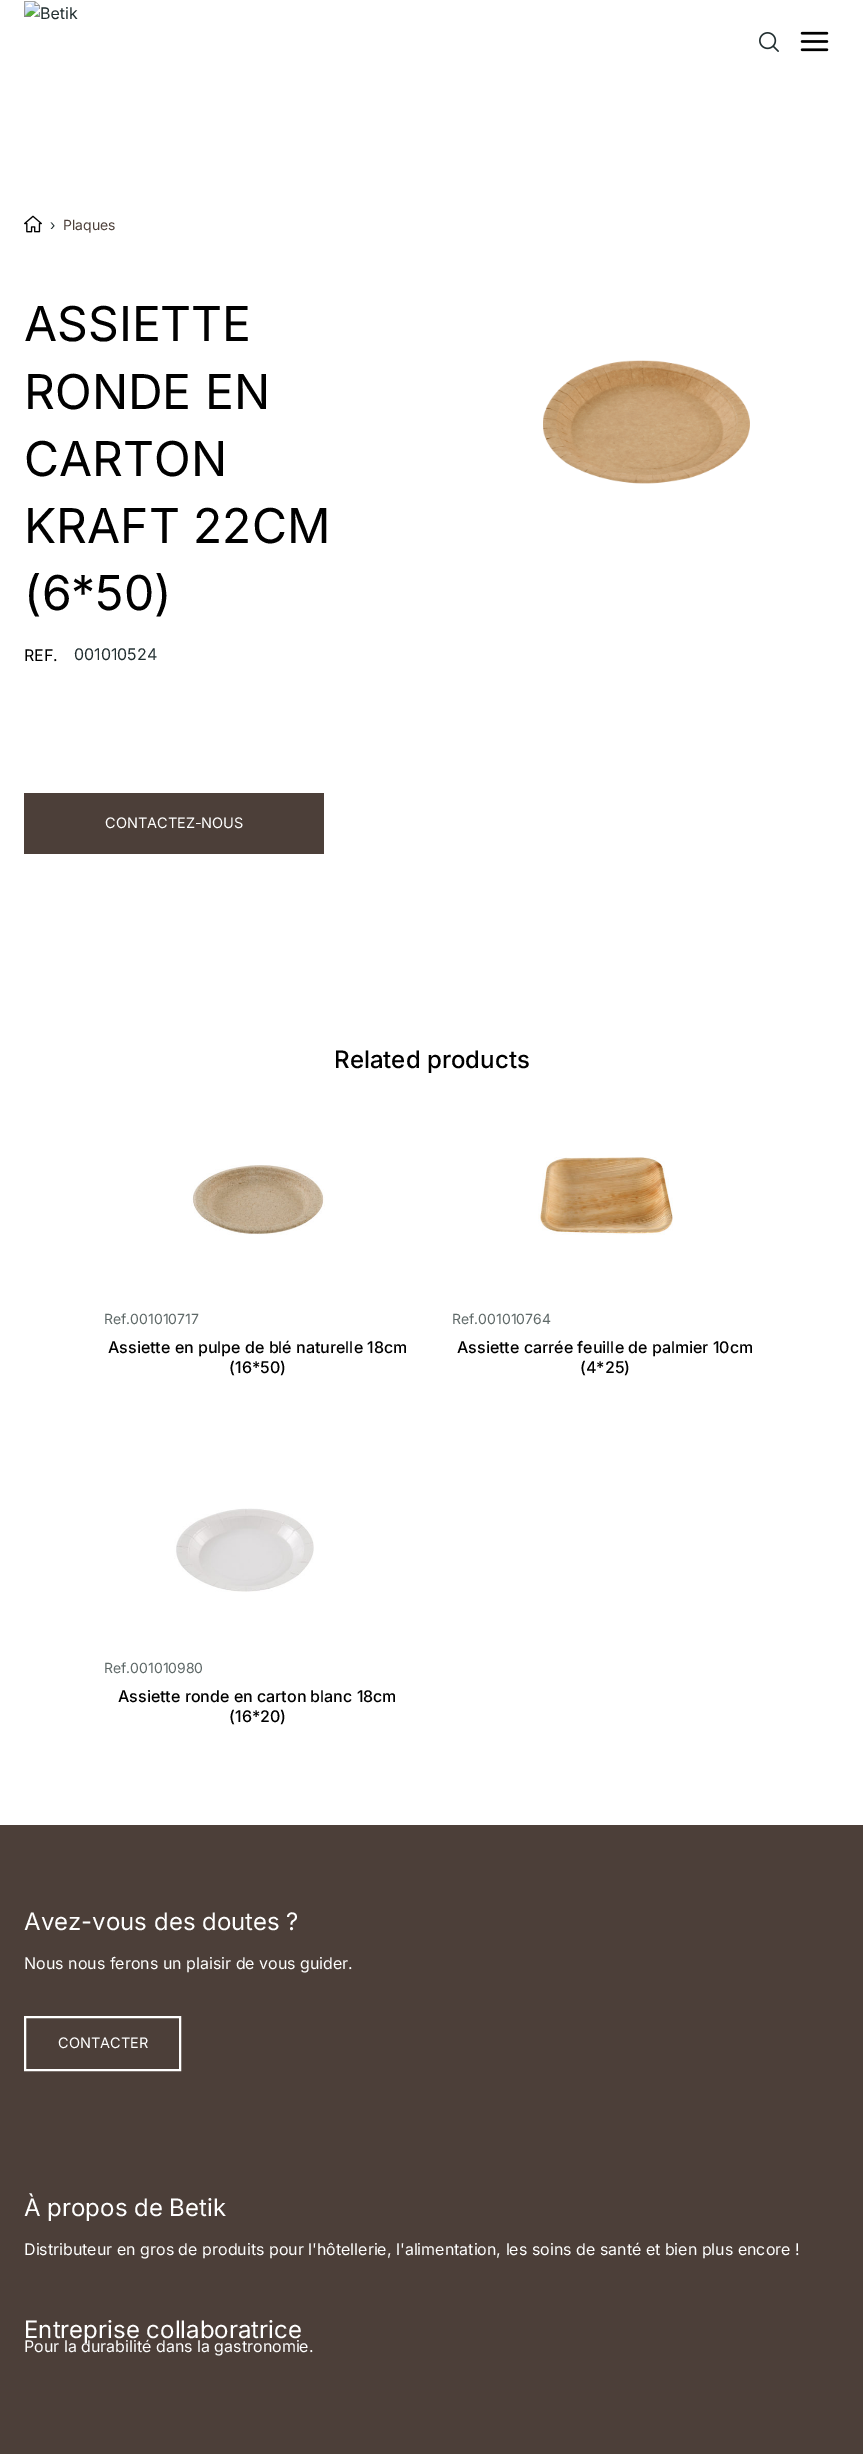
%!PS
<< /PageSize [863 2454] >> setpagedevice
/lw/setlinewidth load def
/co { dup -16 bitshift 255 div exch dup -8 bitshift 255 and 255 div exch 255 and 255 div setrgbcolor } def
/fn { [ exch dup neg 0 0 3 -1 roll 0 0 ] selectfont } def
/tx { co fn moveto show } def
/bx { co rectfill } def
/im { 5 dict begin { /h /w /y /x /name } { exch def } forall
  gsave x y translate w h scale
  w h 8 [w 0 0 h 0 0] name (r) file false 3 colorimage grestore end } def
0 2454 translate 1 -1 scale
4 setmiterlimit
0 0 863 2454 16#FFFFFF bx
(media/1.raw) 24 1 54 19 im
(media/2.raw) 759 32 20 20 im
(media/3.raw) 800 31 29 21 im
(media/4.raw) 24 215 18 18 im
(media/5.raw) 543 360 207 124 im
24 793 300 61 16#4C3F39 bx
(media/6.raw) 191 1165 134 70 im
(media/7.raw) 538 1157 135 78 im
(media/8.raw) 174 1508 140 84 im
0 1825 863 629 16#4C3F39 bx
16#FFFFFF co
2 lw
25 2017 155 53 rectstroke
(›) 50 230 /Inter-Regular 14 16#222F31 tx
(Plaques) 63 230 /Inter-Regular 14 16#4C3F39 tx
(ASSIETTE) 24 341 /Inter-Regular 48 16#000000 tx
(RONDE EN) 24 409 /Inter-Regular 48 16#000000 tx
(CARTON) 24 476 /Inter-Regular 48 16#000000 tx
(KRAFT 22CM) 24 543 /Inter-Regular 48 16#000000 tx
(\(6*50\)) 24 610 /Inter-Regular 48 16#000000 tx
(REF.) 24 661 /Inter-Regular 16 16#000000 tx
(001010524) 74 660 /Inter-Regular 16 16#222F31 tx
(CONTACTEZ-NOUS) 105 828 /Inter-Regular 14.5 16#FFFFFF tx
(Related products) 334 1068 /Inter-Medium 24 16#000000 tx
(Ref.001010717) 104 1324 /Inter-Regular 14 16#5F6968 tx
(Assiette en pulpe de blé naturelle 18cm) 108 1353 /Inter-Medium 16 16#000000 tx
(\(16*50\)) 229 1373 /Inter-Medium 16 16#000000 tx
(Ref.001010764) 452 1324 /Inter-Regular 14 16#5F6968 tx
(Assiette carrée feuille de palmier 10cm) 457 1353 /Inter-Medium 16 16#000000 tx
(\(4*25\)) 580 1373 /Inter-Medium 16 16#000000 tx
(Ref.001010980) 104 1673 /Inter-Regular 14 16#5F6968 tx
(Assiette ronde en carton blanc 18cm) 118 1702 /Inter-Medium 16 16#000000 tx
(\(16*20\)) 229 1722 /Inter-Medium 16 16#000000 tx
(Avez-vous des doutes ?) 24 1930 /Inter-Regular 24 16#FFFFFF tx
(Nous nous ferons un plaisir de vous guider.) 24 1969 /Inter-Regular 16 16#FFFFFF tx
(CONTACTER) 58 2048 /Inter-Regular 14.5 16#FFFFFF tx
(À propos de Betik) 24 2216 /Inter-Regular 24 16#FFFFFF tx
(Distributeur en gros de produits pour l'hôtellerie, l'alimentation, les soins de santé et bien plus encore !) 24 2255 /Inter-Regular 16 16#FFFFFF tx
(Entreprise collaboratrice) 24 2338 /Inter-Regular 24 16#FFFFFF tx
(Pour la durabilité dans la gastronomie.) 24 2352 /Inter-Regular 16 16#FFFFFF tx
showpage
